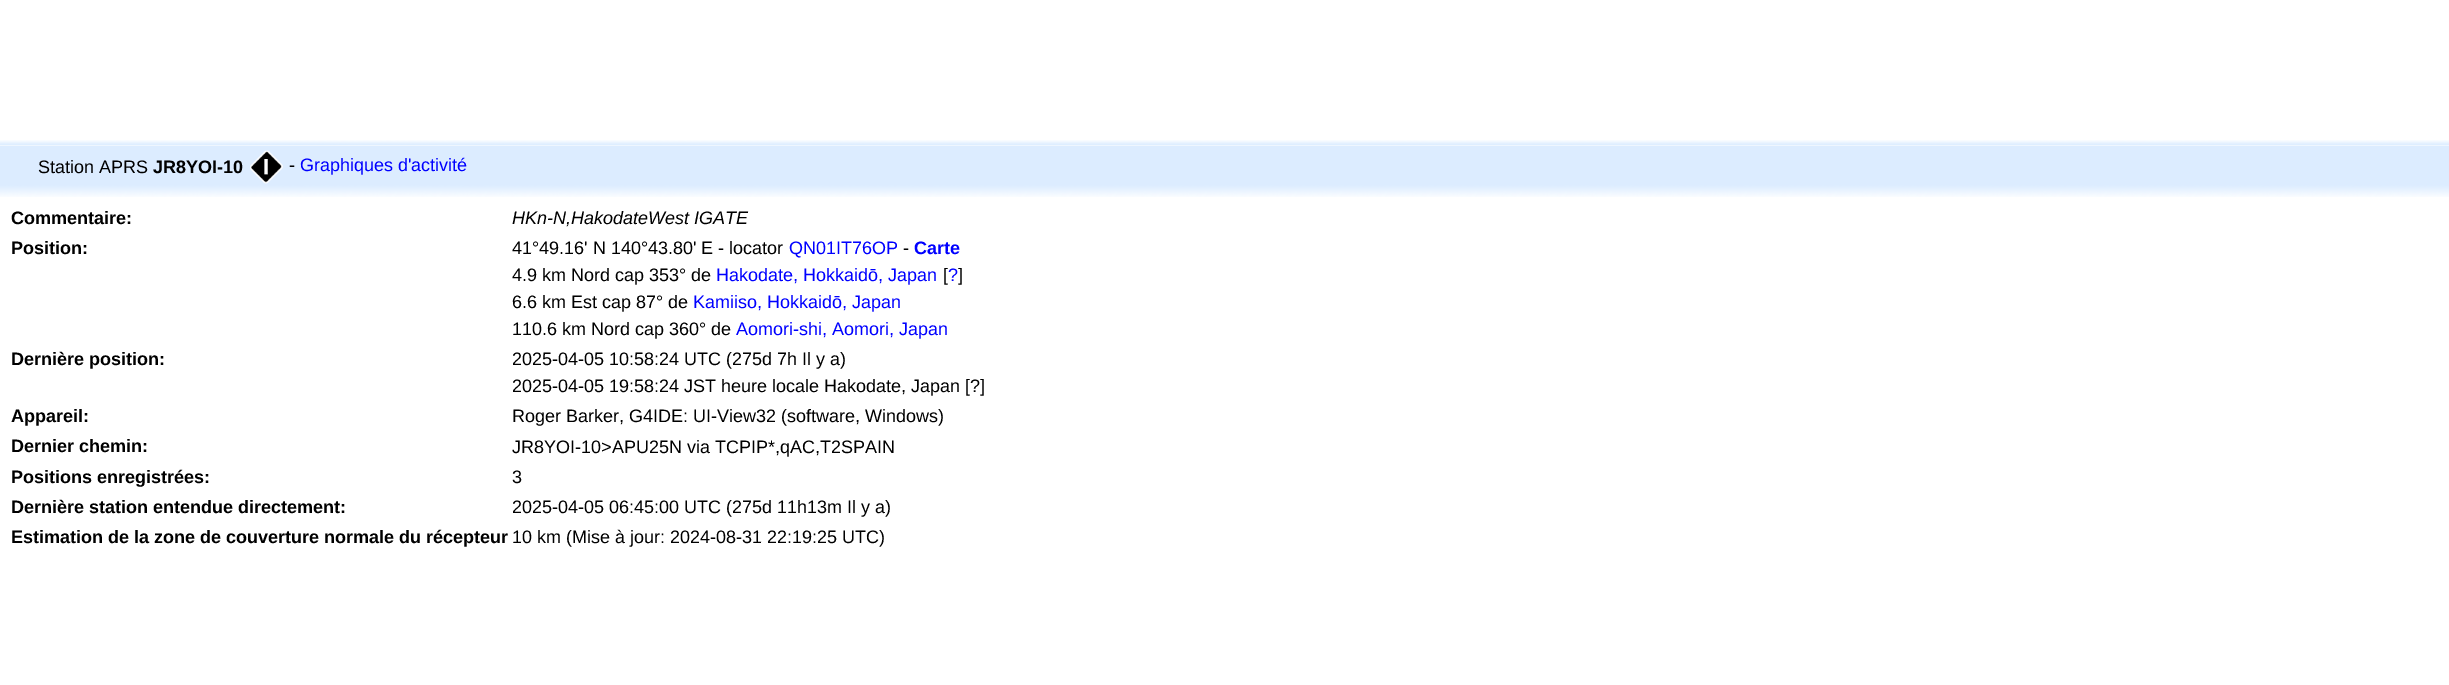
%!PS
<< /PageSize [2449 685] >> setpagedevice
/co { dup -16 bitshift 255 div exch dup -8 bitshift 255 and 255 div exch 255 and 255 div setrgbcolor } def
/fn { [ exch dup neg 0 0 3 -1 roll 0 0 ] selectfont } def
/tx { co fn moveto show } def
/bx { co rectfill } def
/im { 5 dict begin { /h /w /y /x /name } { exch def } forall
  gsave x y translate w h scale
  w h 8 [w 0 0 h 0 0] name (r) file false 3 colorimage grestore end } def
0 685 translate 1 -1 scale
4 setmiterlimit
0 0 2449 685 16#FFFFFF bx
(media/1.raw) 0 140 2449 6 im
0 146 2449 39 16#DCECFF bx
(media/2.raw) 250 150 33 34 im
(media/3.raw) 0 185 2449 12 im
(Station APRS) 38 173 /LiberationSans-Regular 18 16#000000 tx
(JR8YOI-10) 153 173 /LiberationSans-Bold 18 16#000000 tx
(-) 289 171 /LiberationSans-Regular 18 16#000000 tx
(Graphiques d'activité) 300 171 /LiberationSans-Regular 18 16#0000FF tx
(Commentaire:) 11 224 /LiberationSans-Bold 18 16#000000 tx
(HKn-N,HakodateWest IGATE) 512 224 /LiberationSans-Italic 18 16#000000 tx
(Position:) 11 254 /LiberationSans-Bold 18 16#000000 tx
(41°49.16' N 140°43.80' E - locator) 512 254 /LiberationSans-Regular 18 16#000000 tx
(QN01IT76OP) 789 254 /LiberationSans-Regular 18 16#0000FF tx
(-) 903 254 /LiberationSans-Regular 18 16#000000 tx
(Carte) 914 254 /LiberationSans-Bold 18 16#0000FF tx
(4.9 km Nord cap 353° de) 512 281 /LiberationSans-Regular 18 16#000000 tx
(Hakodate, Hokkaidō, Japan) 716 281 /LiberationSans-Regular 18 16#0000FF tx
([) 943 281 /LiberationSans-Regular 18 16#000000 tx
(?) 948 281 /LiberationSans-Regular 18 16#0000FF tx
(]) 958 281 /LiberationSans-Regular 18 16#000000 tx
(6.6 km Est cap 87° de) 512 308 /LiberationSans-Regular 18 16#000000 tx
(Kamiiso, Hokkaidō, Japan) 693 308 /LiberationSans-Regular 18 16#0000FF tx
(110.6 km Nord cap 360° de) 512 335 /LiberationSans-Regular 18 16#000000 tx
(Aomori-shi, Aomori, Japan) 736 335 /LiberationSans-Regular 18 16#0000FF tx
(Dernière position:) 11 365 /LiberationSans-Bold 18 16#000000 tx
(2025-04-05 10:58:24 UTC \(275d 7h Il y a\)) 512 365 /LiberationSans-Regular 18 16#000000 tx
(2025-04-05 19:58:24 JST heure locale Hakodate, Japan [?]) 512 392 /LiberationSans-Regular 18 16#000000 tx
(Appareil:) 11 422 /LiberationSans-Bold 18 16#000000 tx
(Roger Barker, G4IDE: UI-View32 \(software, Windows\)) 512 422 /LiberationSans-Regular 18 16#000000 tx
(Dernier chemin:) 11 452 /LiberationSans-Bold 18 16#000000 tx
(JR8YOI-10>APU25N via TCPIP*,qAC,T2SPAIN) 512 453 /LiberationSans-Regular 18 16#000000 tx
(Positions enregistrées:) 11 483 /LiberationSans-Bold 18 16#000000 tx
(3) 512 483 /LiberationSans-Regular 18 16#000000 tx
(Dernière station entendue directement:) 11 513 /LiberationSans-Bold 18 16#000000 tx
(2025-04-05 06:45:00 UTC \(275d 11h13m Il y a\)) 512 513 /LiberationSans-Regular 18 16#000000 tx
(Estimation de la zone de couverture normale du récepteur) 11 543 /LiberationSans-Bold 18 16#000000 tx
(10 km \(Mise à jour: 2024-08-31 22:19:25 UTC\)) 512 543 /LiberationSans-Regular 18 16#000000 tx
showpage
